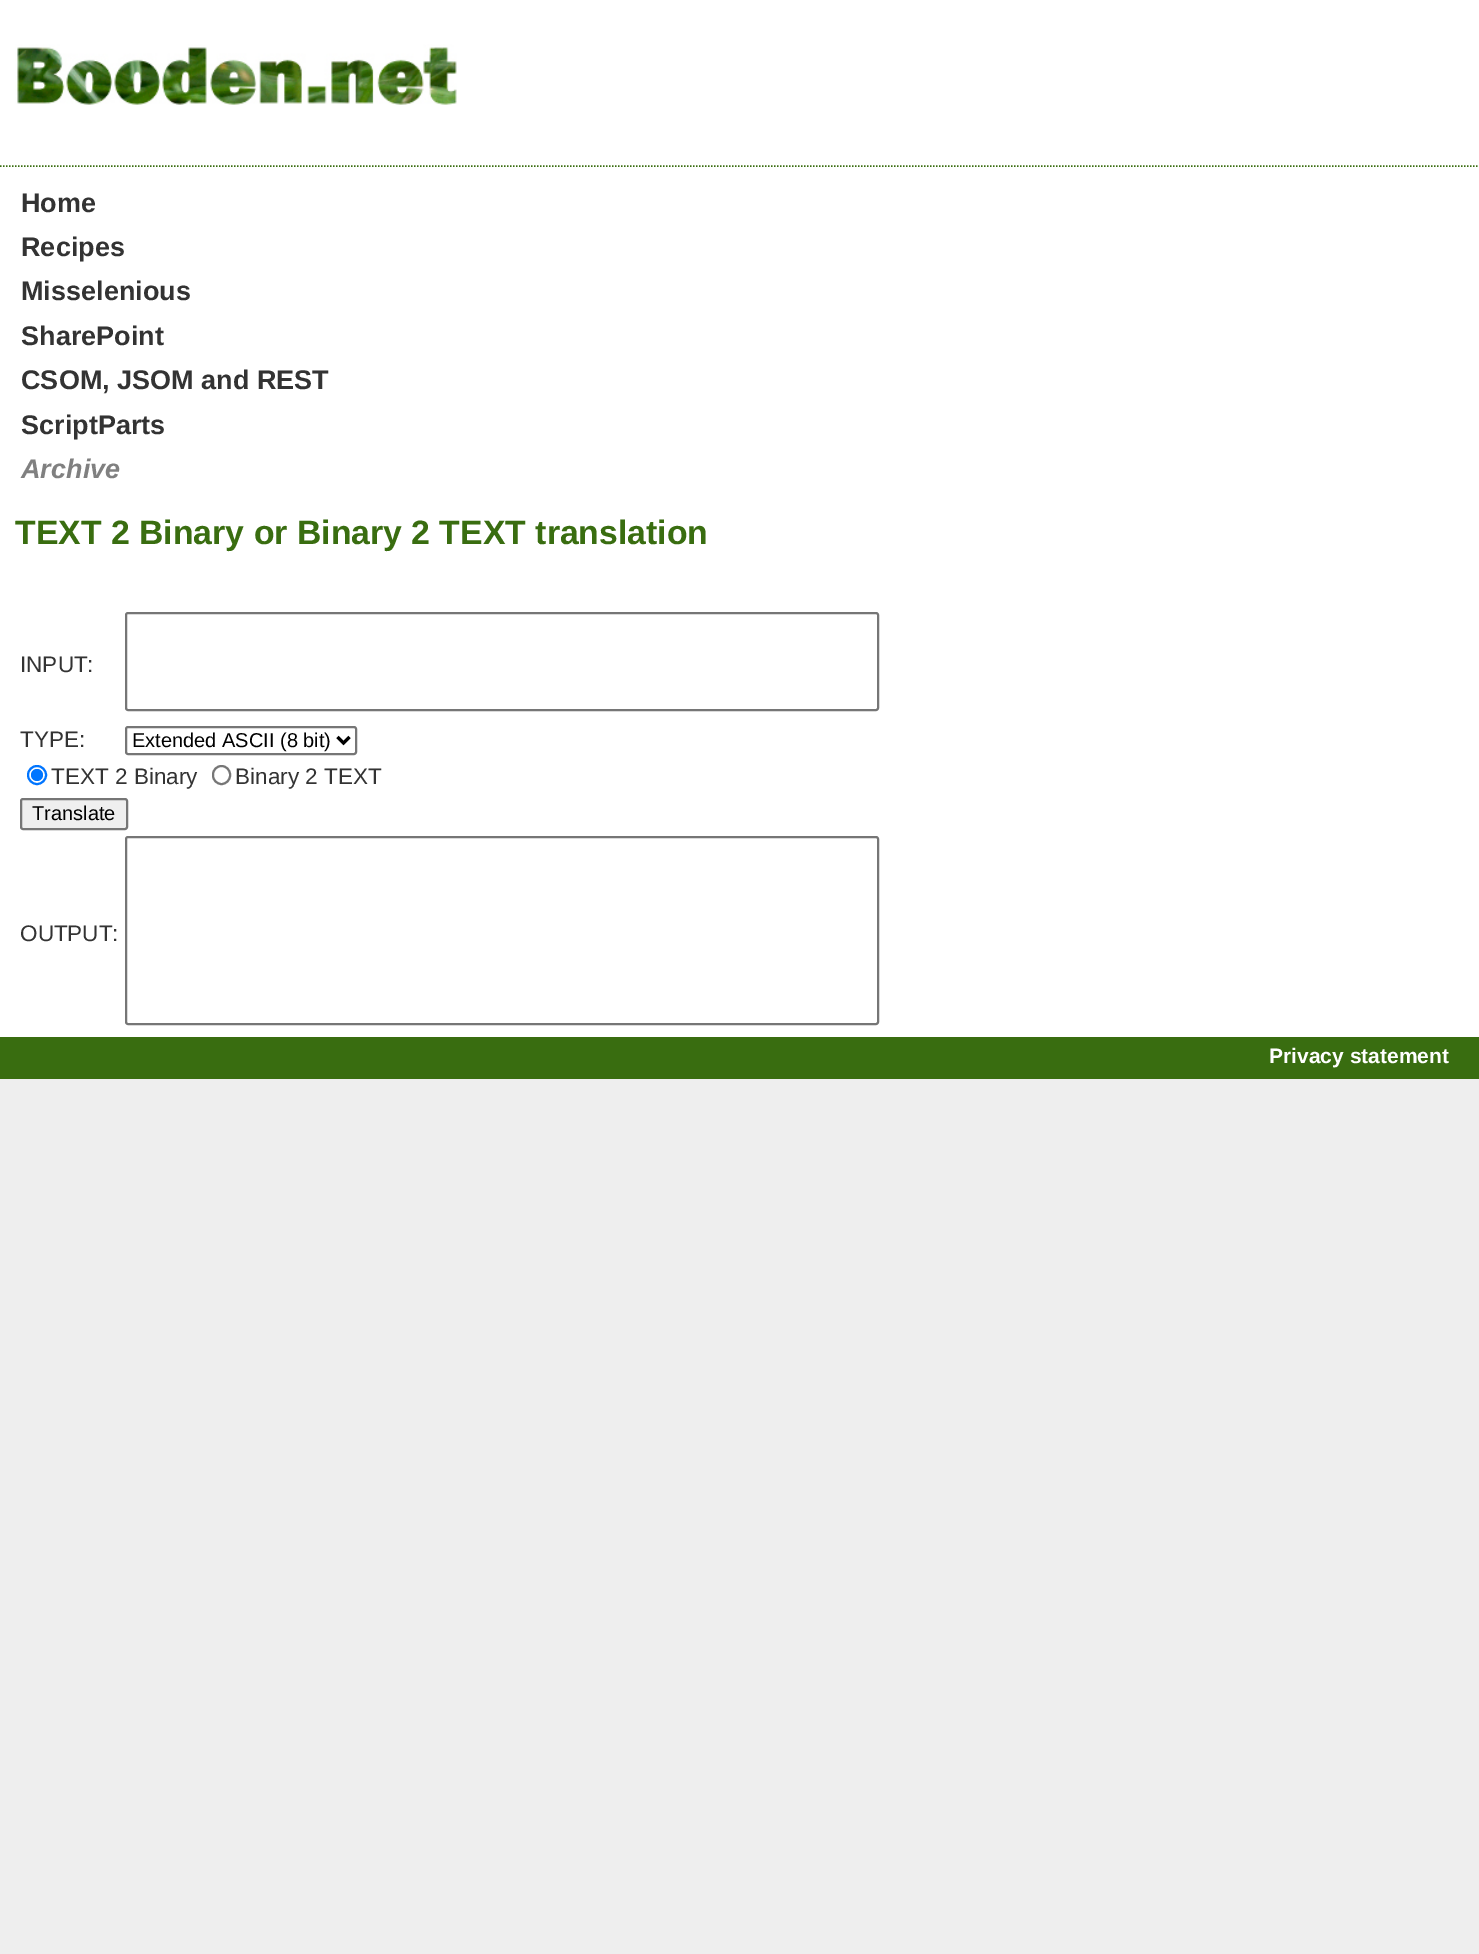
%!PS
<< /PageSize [1479 1954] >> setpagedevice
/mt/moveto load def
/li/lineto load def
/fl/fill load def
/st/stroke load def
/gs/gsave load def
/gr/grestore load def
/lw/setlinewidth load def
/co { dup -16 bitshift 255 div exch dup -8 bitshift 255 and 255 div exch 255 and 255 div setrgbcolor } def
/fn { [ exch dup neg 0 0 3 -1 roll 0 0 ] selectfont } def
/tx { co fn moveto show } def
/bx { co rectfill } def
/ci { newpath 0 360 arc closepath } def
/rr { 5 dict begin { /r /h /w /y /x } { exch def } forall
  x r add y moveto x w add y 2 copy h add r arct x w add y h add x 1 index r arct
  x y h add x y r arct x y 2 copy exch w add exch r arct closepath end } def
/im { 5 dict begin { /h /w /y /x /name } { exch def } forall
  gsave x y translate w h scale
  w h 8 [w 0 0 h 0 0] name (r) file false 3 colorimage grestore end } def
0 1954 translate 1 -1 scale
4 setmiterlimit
0 0 1479 1954 16#EEEEEE bx
0 0 1479 1037 16#FFFFFF bx
(media/1.raw) 15 44 442 61 im
16#396D10 co
1.5 lw
[1.5 1.5] 0 setdash
0 166 mt 1479 166 li st
16#767676 co
2 lw
[] 0 setdash
126 613 752 97 2 rr st
126 727 230 27 2 rr st
16#000000 co
3 lw
337.5 737 mt 343.5 743 li 349.5 737 li st
16#0075FF co
2 lw
37 775 9 ci st
37 775 6 ci fl
16#767676 co
213 766 17 18 8.5 rr st
16#EFEFEF co
21 799 106 30 2 rr gs fl gr
16#767676 co
st
126 837 752 187 2 rr st
0 1037 1479 42 16#396D10 bx
(Home) 21 212 /LiberationSans-Bold 27 16#333333 tx
(Recipes) 21 256 /LiberationSans-Bold 27 16#333333 tx
(Misselenious) 21 300 /LiberationSans-Bold 27 16#333333 tx
(SharePoint) 21 345 /LiberationSans-Bold 27 16#333333 tx
(CSOM, JSOM and REST) 21 389 /LiberationSans-Bold 27 16#333333 tx
(ScriptParts) 21 434 /LiberationSans-Bold 27 16#333333 tx
(Archive) 21 478 /LiberationSans-BoldItalic 27 16#808080 tx
(TEXT 2 Binary or Binary 2 TEXT translation) 15 544 /LiberationSans-Bold 33.8 16#396D10 tx
(INPUT:) 20 672 /LiberationSans-Regular 22.5 16#333333 tx
(TYPE:) 20 747 /LiberationSans-Regular 22.5 16#333333 tx
(Extended ASCII \(8 bit\)) 132 747 /LiberationSans-Regular 20 16#000000 tx
(TEXT 2 Binary) 51 784 /LiberationSans-Regular 22.5 16#333333 tx
(Binary 2 TEXT) 235 784 /LiberationSans-Regular 22.5 16#333333 tx
(Translate) 32 820 /LiberationSans-Regular 20 16#000000 tx
(OUTPUT:) 20 941 /LiberationSans-Regular 22.5 16#333333 tx
(Privacy statement) 1269 1063 /LiberationSans-Bold 21 16#FFFFFF tx
showpage
